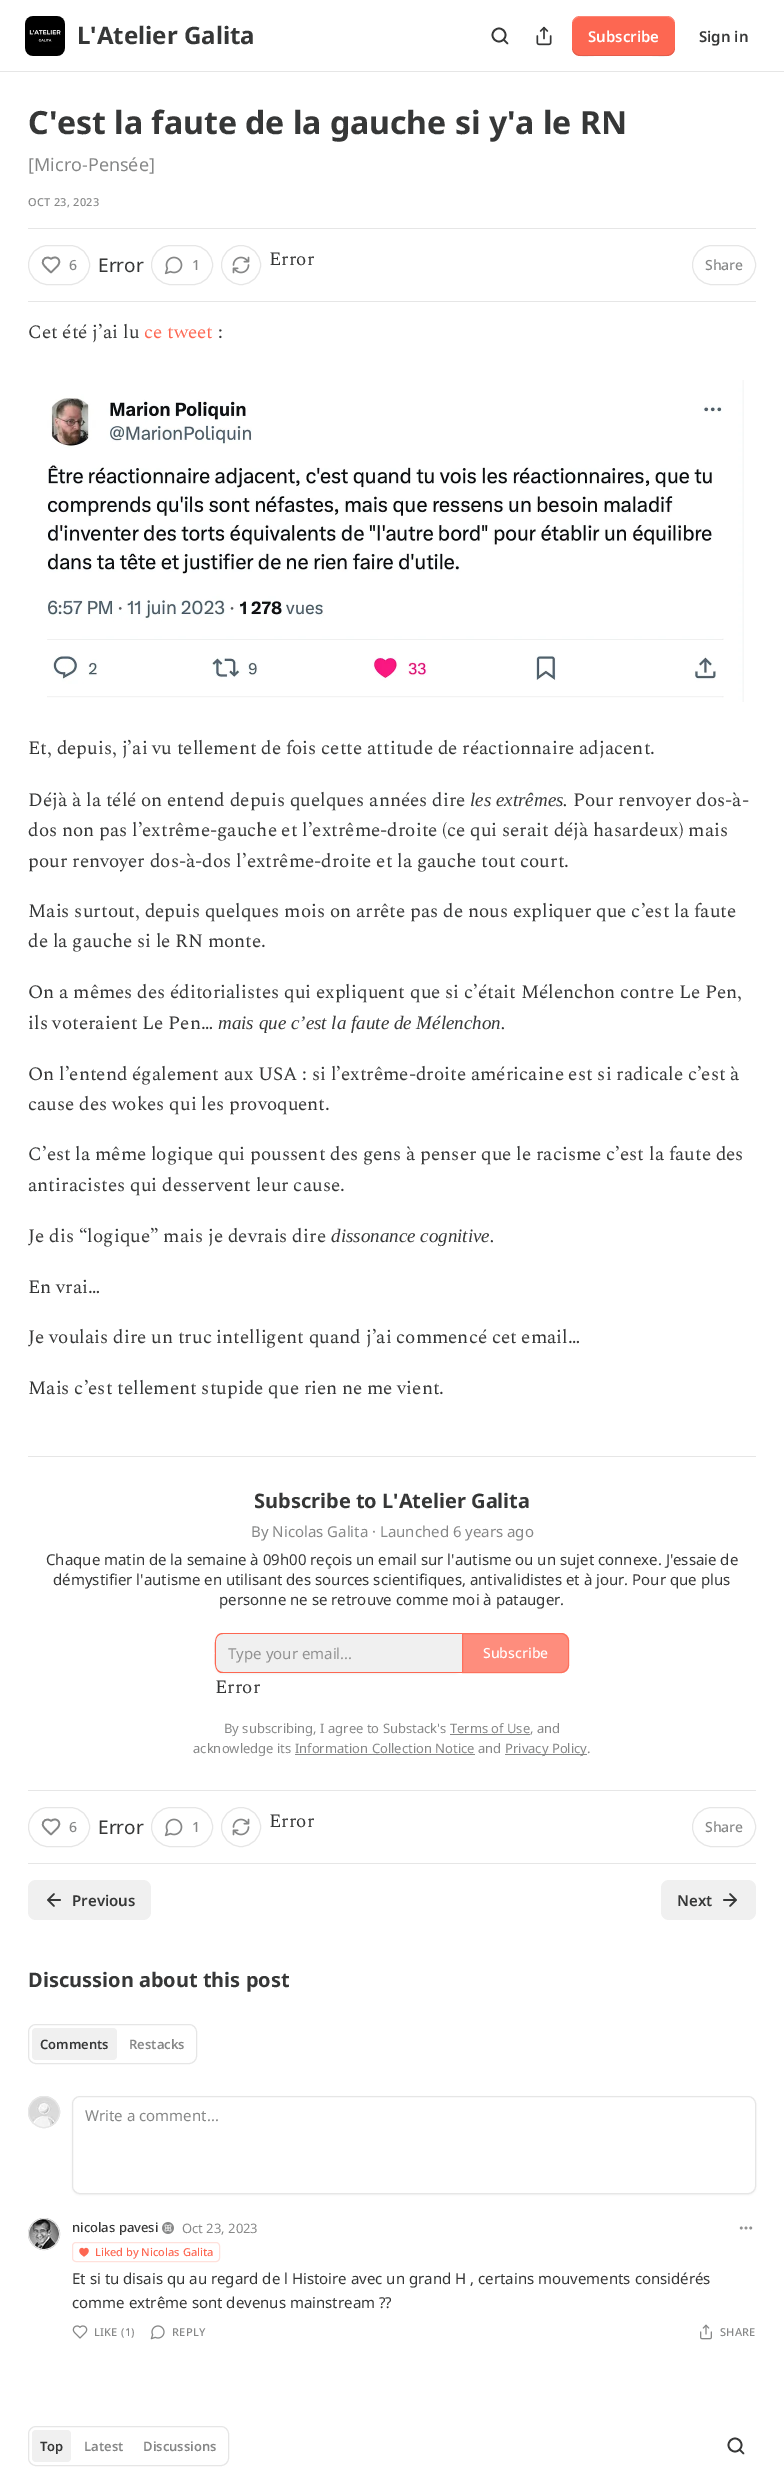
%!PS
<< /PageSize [784 2491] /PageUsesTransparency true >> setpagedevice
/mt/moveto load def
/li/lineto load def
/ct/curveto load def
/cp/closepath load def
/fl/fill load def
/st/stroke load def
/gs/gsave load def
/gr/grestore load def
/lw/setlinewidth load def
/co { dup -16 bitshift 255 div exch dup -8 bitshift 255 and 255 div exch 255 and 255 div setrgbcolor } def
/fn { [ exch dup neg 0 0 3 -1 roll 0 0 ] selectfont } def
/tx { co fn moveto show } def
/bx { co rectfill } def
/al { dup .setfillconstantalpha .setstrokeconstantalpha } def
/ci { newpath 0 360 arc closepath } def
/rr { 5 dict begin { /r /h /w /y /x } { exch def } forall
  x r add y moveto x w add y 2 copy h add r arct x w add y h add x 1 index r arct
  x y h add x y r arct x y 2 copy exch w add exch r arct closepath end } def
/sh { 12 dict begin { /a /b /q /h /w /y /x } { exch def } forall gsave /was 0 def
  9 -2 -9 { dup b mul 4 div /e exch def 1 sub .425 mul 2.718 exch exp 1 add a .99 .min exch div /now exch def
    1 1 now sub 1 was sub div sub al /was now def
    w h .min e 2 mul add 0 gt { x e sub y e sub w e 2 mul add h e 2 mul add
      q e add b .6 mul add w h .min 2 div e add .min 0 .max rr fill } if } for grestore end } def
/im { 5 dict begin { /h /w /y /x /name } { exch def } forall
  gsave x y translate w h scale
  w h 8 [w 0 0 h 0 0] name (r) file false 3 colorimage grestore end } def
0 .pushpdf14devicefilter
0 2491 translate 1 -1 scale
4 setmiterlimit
0 0 784 2491 16#FFFFFF bx
0 71 784 1 16#E6E6E6 bx
(media/1.raw) 25 16 40 40 im
16#363737 co
1.7 lw
499 35 6.5 ci st
1 setlinecap
1 setlinejoin
507.5 43.5 mt 504 40 li st
(media/2.raw) 536 26 16 20 im
16#FD6752 co
572 16 103 40 8 rr fl
0.1 al
16#000000 co
572 47 mt 572 59 586 56 594 56 ct 652 56 li 661 56 675 59 675 47 ct 675 51 671 55 667 55 ct 580 55 li 576 55 572 51 572 47 ct cp fl
0.2 al
16#FFFFFF co
580 17 mt 667 17 li 671 17 675 21 675 25 ct 675 13 661 16 652 16 ct 594 16 li 586 16 572 13 572 25 ct 572 21 576 17 580 17 ct cp fl
1 al
28 228 728 1 16#E6E6E6 bx
28 301 728 1 16#E6E6E6 bx
1 lw
0 setlinecap
0 setlinejoin
28.5 245.5 61 39 19.5 rr st
16#868787 co
1.7 lw
1 setlinecap
1 setlinejoin
57 266.5 mt 63 260.5 56 254.5 51 259 ct 47.5 255.5 41.5 258.5 43 263.5 ct 44 266.5 49 270.5 51 272.5 ct cp st
16#E6E6E6 co
1 lw
0 setlinecap
0 setlinejoin
151.5 245.5 61 39 19.5 rr st
(media/3.raw) 164 256 19 19 im
241 265 19.5 ci st
(media/4.raw) 232 256 18 18 im
692.5 245.5 63 39 19.5 rr st
(media/5.raw) 47 380 697 322 im
28 1456 728 1 16#E6E6E6 bx
16#000000 co
215 1634 247 40 8 1 .05 sh
16#F0F0F0 co
223 1634 mt 462 1634 li 462 1672 li 223 1672 li 219 1672 216 1669 216 1665 ct 216 1641 li 216 1637 219 1634 223 1634 ct cp fl
16#FD6752 co
223 1633 mt 462 1633 li 462 1673 li 221 1673 li 213 1671 215 1659 215 1653 ct 215 1646 213 1633 223 1633 ct cp 223 1634 mt 462 1634 li 462 1672 li 223 1672 li 219 1672 216 1669 216 1665 ct 216 1641 li 216 1637 219 1634 223 1634 ct cp eofill
0.75 al
462 1633 mt 561 1633 li 565.5 1633 569 1636.5 569 1641 ct 569 1665 li 569 1669.5 565.5 1673 561 1673 ct 462 1673 li cp fl
462.5 1633.5 mt 561 1633.5 li 565 1633.5 568.5 1637 568.5 1641 ct 568.5 1665 li 568.5 1669 565 1672.5 561 1672.5 ct 462.5 1672.5 li cp st
1 al
450 1734 80 1 16#868787 bx
505 1754 82 1 16#868787 bx
295 1754 180 1 16#868787 bx
28 1790 728 1 16#E6E6E6 bx
28 1863 728 1 16#E6E6E6 bx
28.5 1807.5 61 39 19.5 rr st
16#868787 co
1.7 lw
1 setlinecap
1 setlinejoin
57 1828.5 mt 63 1822.5 56 1816.5 51 1821 ct 47.5 1817.5 41.5 1820.5 43 1825.5 ct 44 1828.5 49 1832.5 51 1834.5 ct cp st
16#E6E6E6 co
1 lw
0 setlinecap
0 setlinejoin
151.5 1807.5 61 39 19.5 rr st
(media/3.raw) 164 1818 19 19 im
241 1827 19.5 ci st
(media/4.raw) 232 1818 18 18 im
692.5 1807.5 63 39 19.5 rr st
16#F0F0F0 co
28 1880 123 40 8 rr fl
16#363737 co
1.7 lw
1 setlinecap
1 setlinejoin
54 1906 mt 48 1900 li 54 1894 li 60 1900 mt 48 1900 li st
16#F0F0F0 co
661 1880 95 40 8 rr fl
16#363737 co
724 1900 mt 736 1900 li 730 1894 mt 736 1900 li 730 1906 li st
16#E6E6E6 co
1 lw
0 setlinecap
0 setlinejoin
28.5 2024.5 168 39 7.5 rr st
16#F0F0F0 co
32 2028 85 32 4 rr fl
16#E6E6E6 co
44 2112 15.5 ci st
(media/6.raw) 28 2096 32 32 im
44 2112 15.5 ci st
16#000000 co
72 2097 684 98 8 1 .05 sh
16#FFFFFF co
72.5 2096.5 683 97 7.5 rr gs fl gr
16#E6E6E6 co
st
44 2234 15.5 ci st
(media/7.raw) 28 2218 32 32 im
44 2234 15.5 ci st
(media/8.raw) 162 2222 12 12 im
16#FFE1DC co
72.5 2242.5 147 19 3.5 rr st
(media/9.raw) 79 2247 10 10 im
16#929292 co
1.3 lw
746 2228 .7 ci st
750.7 2228 .7 ci st
741.3 2228 .7 ci st
(media/10.raw) 72 2325 16 14 im
(media/11.raw) 150 2325 15 15 im
(media/12.raw) 700 2324 12 16 im
16#E6E6E6 co
1 lw
28.5 2426.5 200 39 7.5 rr st
16#F0F0F0 co
32 2430 39 32 4 rr fl
16#363737 co
1.7 lw
735 2445 6.5 ci st
1 setlinecap
1 setlinejoin
743.5 2453.5 mt 740 2450 li st
(L'Atelier Galita) 77 44 /NotoSans-Bold 24 16#363737 tx
(Subscribe) 588 42 /NotoSans-SemiBold 15 16#FFFFFF tx
(Sign in) 699 42 /NotoSans-SemiBold 15 16#363737 tx
(C'est la faute de la gauche si y'a le RN) 28 134 /NotoSans-Bold 32 16#363737 tx
([Micro-Pensée]) 28 171 /NotoSans-Regular 18 16#868787 tx
/NotoSans-Medium 11 fn
28 206 mt .25 0 (OCT 23, 2023) ashow
(6) 69 270 /NotoSans-Medium 14 16#868787 tx
(Error) 98 272 /NotoSans-Regular 19 16#363737 tx
(1) 192 270 /NotoSans-Medium 14 16#868787 tx
(Error) 269 265 /Spectral-Regular 19 16#363737 tx
(Share) 705 270 /NotoSans-Medium 14 16#868787 tx
(Cet été j’ai lu) 28 338 /Spectral-Regular 19 16#363737 tx
(ce tweet) 144 338 /Spectral-Regular 19 16#FD6752 tx
(:) 218 338 /Spectral-Regular 19 16#363737 tx
(Et, depuis, j’ai vu tellement de fois cette attitude de réactionnaire adjacent.) 28 754 /Spectral-Regular 19 16#363737 tx
(Déjà à la télé on entend depuis quelques années dire) 28 806 /Spectral-Regular 19 16#363737 tx
(les extrêmes.) 470 806 /LiberationSerif-Italic 19 16#363737 tx
(Pour renvoyer dos-à-) 573 806 /Spectral-Regular 19 16#363737 tx
(dos non pas l’extrême-gauche et l’extrême-droite \(ce qui serait déjà hasardeux\) mais) 28 836 /Spectral-Regular 19 16#363737 tx
(pour renvoyer dos-à-dos l’extrême-droite et la gauche tout court.) 28 867 /Spectral-Regular 19 16#363737 tx
(Mais surtout, depuis quelques mois on arrête pas de nous expliquer que c’est la faute) 28 917 /Spectral-Regular 19 16#363737 tx
(de la gauche si le RN monte.) 28 947 /Spectral-Regular 19 16#363737 tx
(On a mêmes des éditorialistes qui expliquent que si c’était Mélenchon contre Le Pen,) 28 998 /Spectral-Regular 19 16#363737 tx
(ils voteraient Le Pen…) 28 1029 /Spectral-Regular 19 16#363737 tx
(mais que c’est la faute de Mélenchon.) 218 1029 /LiberationSerif-Italic 19 16#363737 tx
(On l’entend également aux USA : si l’extrême-droite américaine est si radicale c’est à) 28 1080 /Spectral-Regular 19 16#363737 tx
(cause des wokes qui les provoquent.) 28 1110 /Spectral-Regular 19 16#363737 tx
(C’est la même logique qui poussent des gens à penser que le racisme c’est la faute des) 28 1160 /Spectral-Regular 19 16#363737 tx
(antiracistes qui desservent leur cause.) 28 1191 /Spectral-Regular 19 16#363737 tx
(Je dis “logique” mais je devrais dire) 28 1242 /Spectral-Regular 19 16#363737 tx
(dissonance cognitive.) 331 1242 /LiberationSerif-Italic 19 16#363737 tx
(En vrai…) 28 1293 /Spectral-Regular 19 16#363737 tx
(Je voulais dire un truc intelligent quand j’ai commencé cet email…) 28 1343 /Spectral-Regular 19 16#363737 tx
(Mais c’est tellement stupide que rien ne me vient.) 28 1394 /Spectral-Regular 19 16#363737 tx
(Subscribe to L'Atelier Galita) 254 1508 /NotoSans-Bold 20 16#363737 tx
(By Nicolas Galita · Launched 6 years ago) 251 1537 /NotoSans-Regular 15 16#868787 tx
(Chaque matin de la semaine à 09h00 reçois un email sur l'autisme ou un sujet connexe. J'essaie de) 46 1565 /NotoSans-Regular 15 16#363737 tx
(démystifier l'autisme en utilisant des sources scientifiques, antivalidistes et à jour. Pour que plus) 53 1585 /NotoSans-Regular 15 16#363737 tx
(personne ne se retrouve comme moi à patauger.) 219 1605 /NotoSans-Regular 15 16#363737 tx
(Type your email...) 228 1659 /NotoSans-Regular 15 16#929292 tx
(Subscribe) 483 1658 /NotoSans-Medium 14 16#FFFFFF tx
(Error) 215 1693 /Spectral-Regular 19 16#363737 tx
(By subscribing, I agree to Substack's Terms of Use, and) 224 1733 /NotoSans-Regular 13 16#868787 tx
(acknowledge its Information Collection Notice and) 193 1753 /NotoSans-Regular 13 16#868787 tx
(Privacy Policy.) 505 1753 /NotoSans-Regular 13 16#868787 tx
(6) 69 1832 /NotoSans-Medium 14 16#868787 tx
(Error) 98 1834 /NotoSans-Regular 19 16#363737 tx
(1) 192 1832 /NotoSans-Medium 14 16#868787 tx
(Error) 269 1827 /Spectral-Regular 19 16#363737 tx
(Share) 705 1832 /NotoSans-Medium 14 16#868787 tx
(Previous) 72 1906 /NotoSans-SemiBold 15 16#363737 tx
(Next) 677 1906 /NotoSans-SemiBold 15 16#363737 tx
(Discussion about this post) 28 1987 /NotoSans-Bold 20 16#363737 tx
(Comments) 40 2049 /NotoSans-SemiBold 13 16#363737 tx
(Restacks) 129 2049 /NotoSans-SemiBold 13 16#868787 tx
(Write a comment...) 85 2121 /NotoSans-Regular 15 16#868787 tx
(nicolas pavesi) 72 2232 /NotoSans-Medium 13 16#363737 tx
(Oct 23, 2023) 182 2233 /NotoSans-Regular 13 16#868787 tx
(Liked by Nicolas Galita) 95 2256 /NotoSans-Medium 11 16#FD6752 tx
(Et si tu disais qu au regard de l Histoire avec un grand H , certains mouvements considérés) 72 2284 /NotoSans-Regular 15 16#363737 tx
(comme extrême sont devenus mainstream ??) 72 2308 /NotoSans-Regular 15 16#363737 tx
/NotoSans-Medium 11 fn
16#868787 co
94 2336 mt .25 0 (LIKE \(1\)) ashow
172 2336 mt .25 0 (REPLY) ashow
720 2336 mt .25 0 (SHARE) ashow
(Top) 40 2451 /NotoSans-SemiBold 13 16#363737 tx
(Latest) 84 2451 /NotoSans-SemiBold 13 16#868787 tx
(Discussions) 143 2451 /NotoSans-SemiBold 13 16#868787 tx
.poppdf14devicefilter showpage
